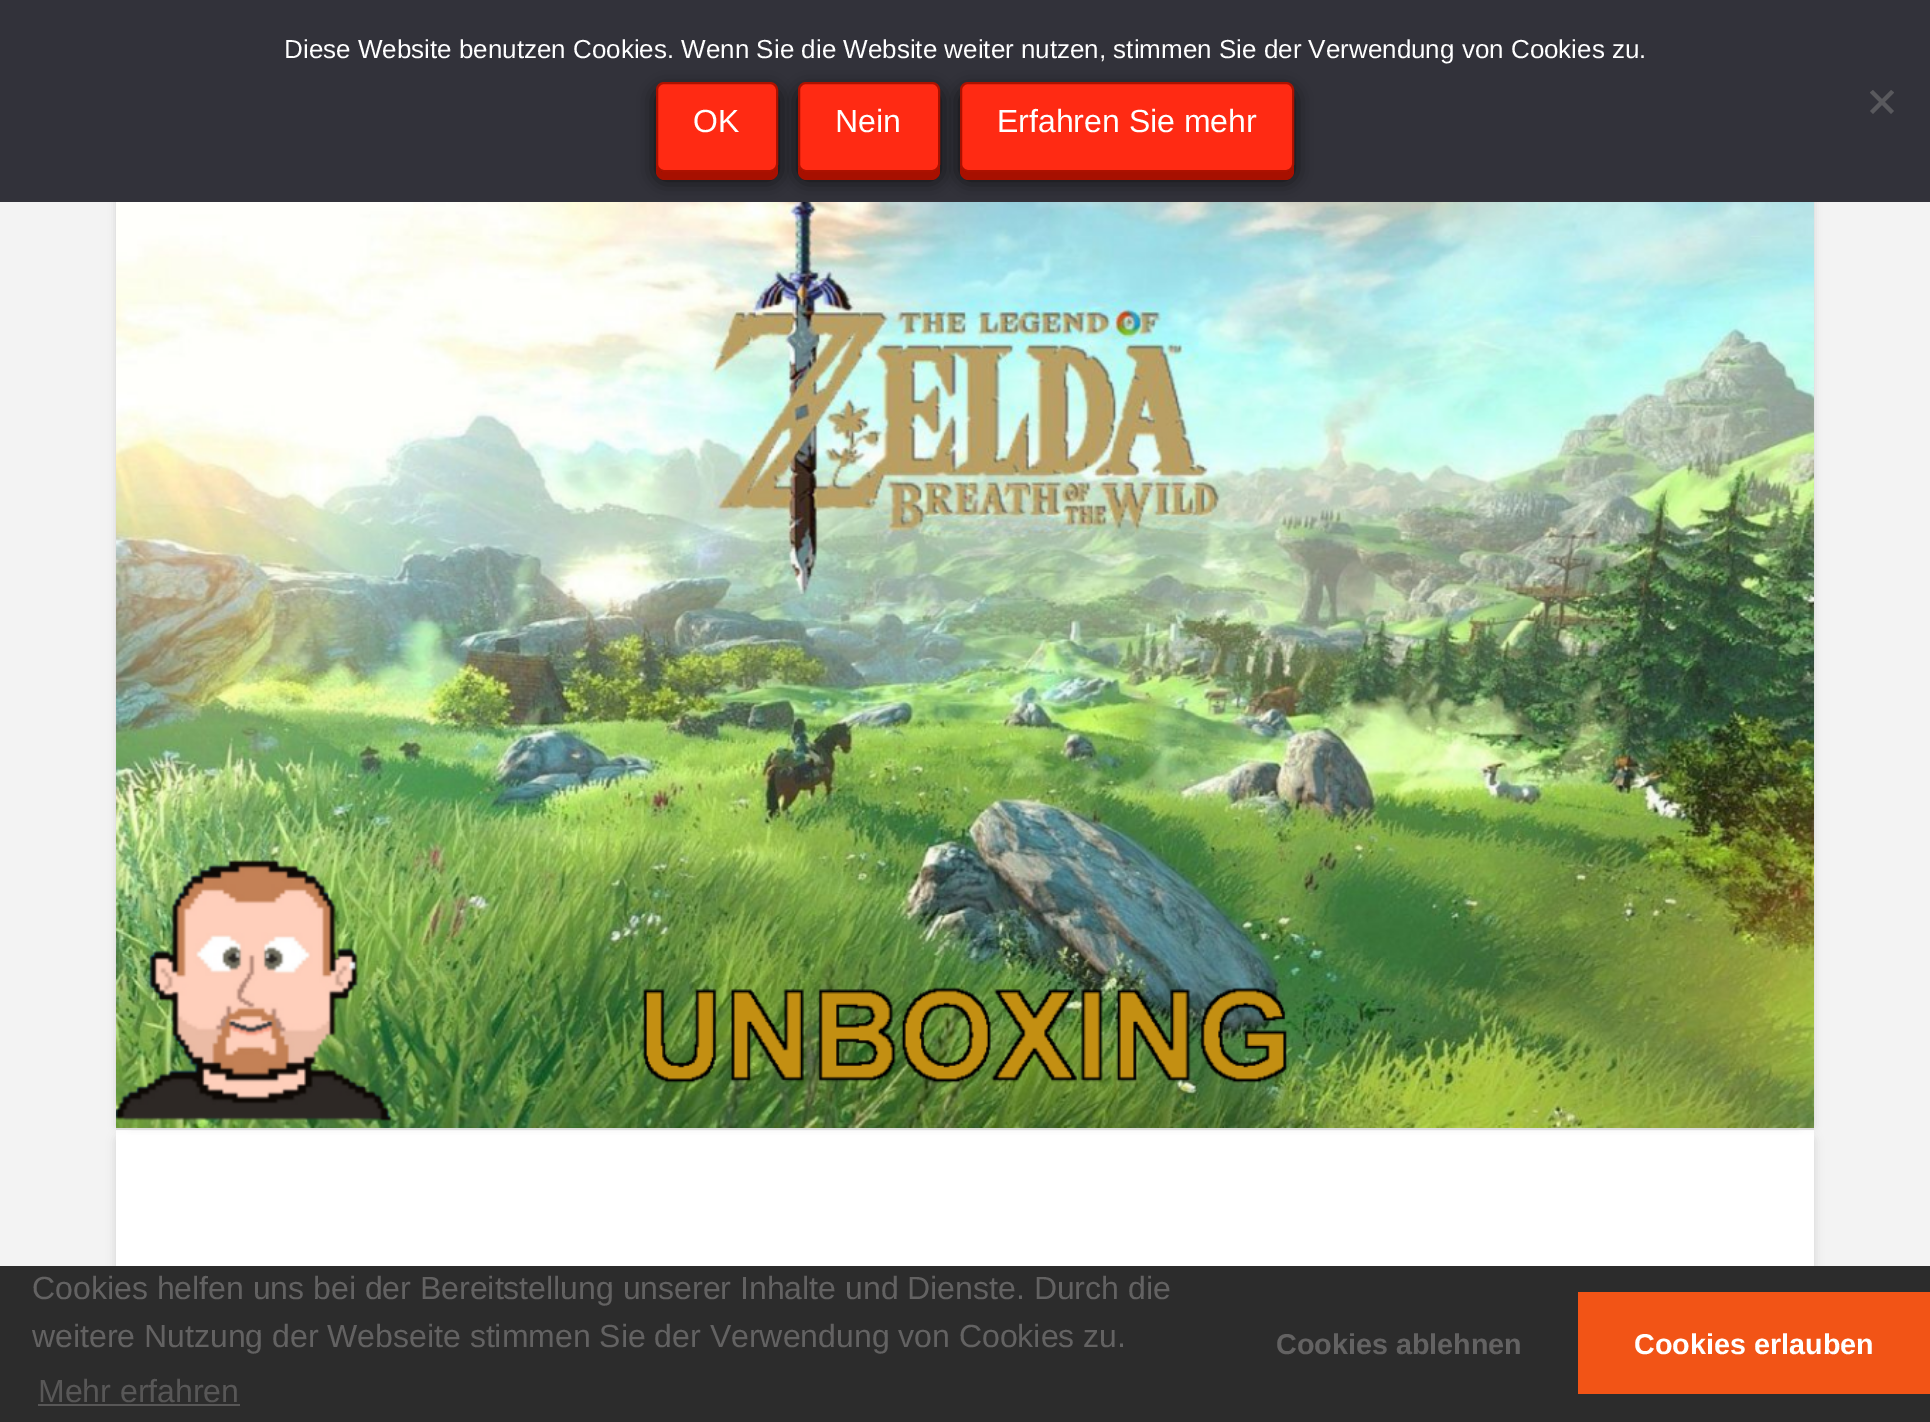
%!PS
<< /PageSize [1930 1422] /PageUsesTransparency true >> setpagedevice
/mt/moveto load def
/li/lineto load def
/ct/curveto load def
/cp/closepath load def
/fl/fill load def
/st/stroke load def
/gs/gsave load def
/gr/grestore load def
/lw/setlinewidth load def
/co { dup -16 bitshift 255 div exch dup -8 bitshift 255 and 255 div exch 255 and 255 div setrgbcolor } def
/fn { [ exch dup neg 0 0 3 -1 roll 0 0 ] selectfont } def
/tx { co fn moveto show } def
/bx { co rectfill } def
/al { dup .setfillconstantalpha .setstrokeconstantalpha } def
/rr { 5 dict begin { /r /h /w /y /x } { exch def } forall
  x r add y moveto x w add y 2 copy h add r arct x w add y h add x 1 index r arct
  x y h add x y r arct x y 2 copy exch w add exch r arct closepath end } def
/sh { 12 dict begin { /a /b /q /h /w /y /x } { exch def } forall gsave /was 0 def
  9 -2 -9 { dup b mul 4 div /e exch def 1 sub .425 mul 2.718 exch exp 1 add a .99 .min exch div /now exch def
    1 1 now sub 1 was sub div sub al /was now def
    w h .min e 2 mul add 0 gt { x e sub y e sub w e 2 mul add h e 2 mul add
      q e add b .6 mul add w h .min 2 div e add .min 0 .max rr fill } if } for grestore end } def
/im { 5 dict begin { /h /w /y /x /name } { exch def } forall
  gsave x y translate w h scale
  w h 8 [w 0 0 h 0 0] name (r) file false 3 colorimage grestore end } def
0 .pushpdf14devicefilter
0 1422 translate 1 -1 scale
4 setmiterlimit
0 0 1930 1422 16#F3F3F3 bx
16#000000 co
116 1134 1698 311 8 5 .13 sh
116 1130 1698 136 16#FFFFFF bx
16#000000 co
116 184 1682 942 0 4 .13 sh
132 184 1682 942 0 4 .13 sh
0 0 1930 202 16#32323A bx
16#59595D co
1891 90 mt 1894 92.5 li 1873 114 li 1870 111 li cp fl
1870 92.5 mt 1873 90 li 1894 111 li 1891 114 li cp fl
(media/1.raw) 116 202 1698 926 im
16#000000 co
656 90 122 90 8 9 .75 sh
16#A71000 co
656 164 mt 656 172 li 656 176 660 180 664 180 ct 770 180 li 774 180 778 176 778 172 ct 778 164 li 778 168 774 172 770 172 ct 664 172 li 660 172 656 168 656 164 ct cp fl
16#FF2A13 co
657 83 120 88 7 rr gs fl gr
16#AC1100 co
2 lw
st
16#000000 co
798 90 142 90 8 9 .75 sh
16#A71000 co
798 164 mt 798 172 li 798 176 802 180 806 180 ct 932 180 li 936 180 940 176 940 172 ct 940 164 li 940 168 936 172 932 172 ct 806 172 li 802 172 798 168 798 164 ct cp fl
16#FF2A13 co
799 83 140 88 7 rr gs fl gr
16#AC1100 co
st
16#000000 co
960 90 334 90 8 9 .75 sh
16#A71000 co
960 164 mt 960 172 li 960 176 964 180 968 180 ct 1286 180 li 1290 180 1294 176 1294 172 ct 1294 164 li 1294 168 1290 172 1286 172 ct 968 172 li 964 172 960 168 960 164 ct cp fl
16#FF2A13 co
961 83 332 88 7 rr gs fl gr
16#AC1100 co
st
116 1128 1698 2 16#DDDDDD bx
0 1266 1930 156 16#2C2C2C bx
38 1404 202 2 16#585757 bx
1578 1292 352 102 16#F25416 bx
(Diese Website benutzen Cookies. Wenn Sie die Website weiter nutzen, stimmen Sie der Verwendung von Cookies zu.) 284 58 /LiberationSans-Regular 26 16#FFFFFF tx
(OK) 693 132 /LiberationSans-Regular 32 16#FFFFFF tx
(Nein) 835 132 /LiberationSans-Regular 32 16#FFFFFF tx
(Erfahren Sie mehr) 997 132 /LiberationSans-Regular 32 16#FFFFFF tx
(Cookies helfen uns bei der Bereitstellung unserer Inhalte und Dienste. Durch die) 32 1299 /LiberationSans-Regular 32 16#636262 tx
(weitere Nutzung der Webseite stimmen Sie der Verwendung von Cookies zu.) 32 1347 /LiberationSans-Regular 32 16#636262 tx
(Mehr erfahren) 38 1402 /LiberationSans-Regular 32 16#585757 tx
(Cookies ablehnen) 1276 1354 /LiberationSans-Bold 28.75 16#636262 tx
(Cookies erlauben) 1634 1354 /LiberationSans-Bold 28.75 16#FFFFFF tx
.poppdf14devicefilter showpage
